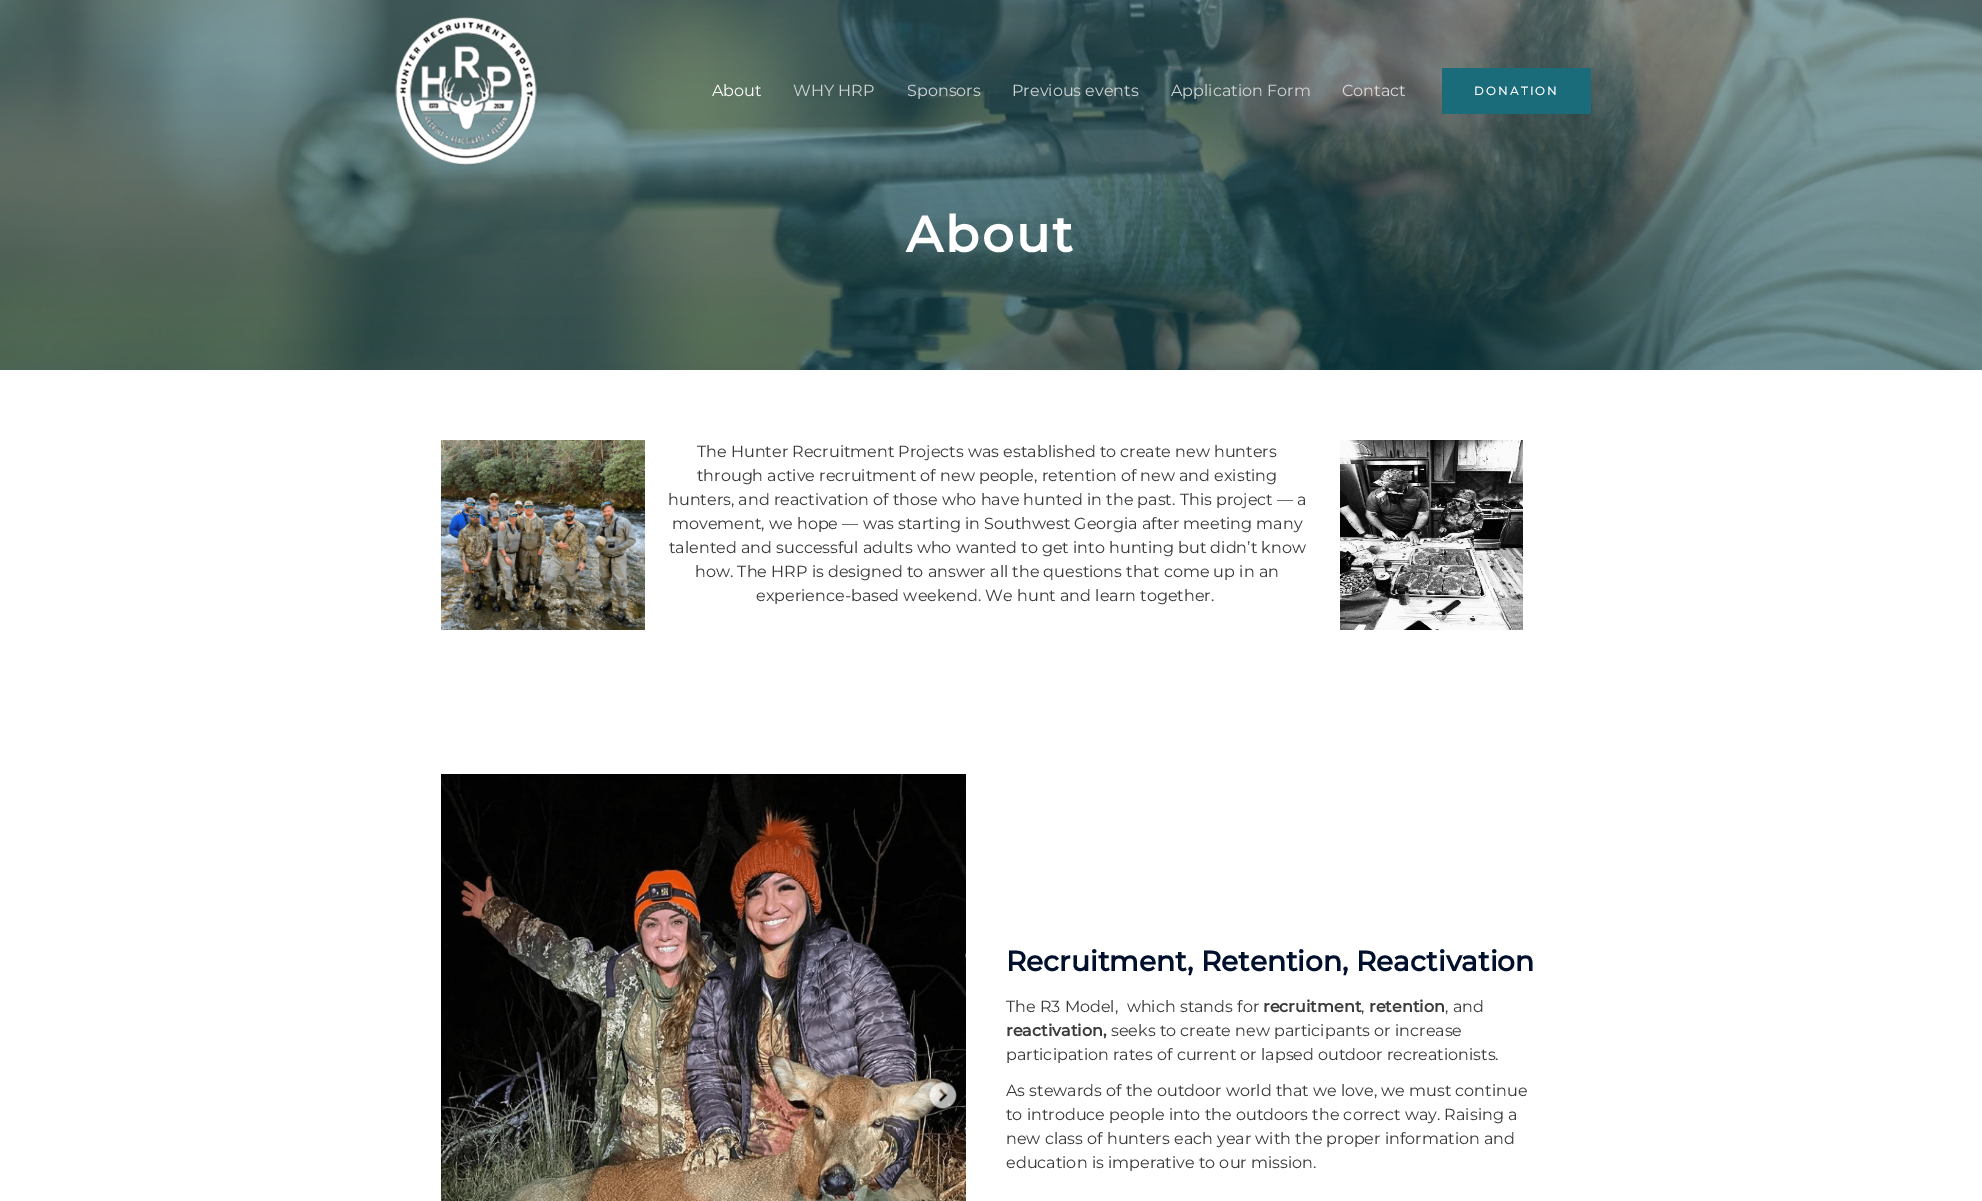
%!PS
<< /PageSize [1982 1201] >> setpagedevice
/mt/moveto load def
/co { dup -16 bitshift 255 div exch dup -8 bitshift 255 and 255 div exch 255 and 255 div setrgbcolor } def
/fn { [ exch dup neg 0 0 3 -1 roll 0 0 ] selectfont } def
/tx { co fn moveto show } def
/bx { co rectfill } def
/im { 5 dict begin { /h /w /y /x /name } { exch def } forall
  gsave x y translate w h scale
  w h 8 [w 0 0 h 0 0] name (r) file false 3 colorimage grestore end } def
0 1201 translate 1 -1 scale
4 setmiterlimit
0 0 1982 1201 16#FFFFFF bx
(media/2.raw) 0 0 1982 370 im
(media/1.raw) 395 17 142 149 im
1442 68 149 46 16#1A6C7A bx
(media/3.raw) 441 440 204 190 im
(media/4.raw) 1340 440 183 190 im
(media/5.raw) 441 774 525 427 im
(About) 712 96 /Montserrat-Regular 16 16#FFFFFF tx
(WHY HRP) 793 96 /Montserrat-Regular 16 16#CFD5D4 tx
(Sponsors) 907 96 /Montserrat-Regular 16 16#CFD5D4 tx
(Previous events) 1012 96 /Montserrat-Regular 16 16#CFD5D4 tx
(Application Form) 1171 96 /Montserrat-Regular 16 16#CFD5D4 tx
(Contact) 1342 96 /Montserrat-Regular 16 16#D9DAD9 tx
/Montserrat-Medium 12 fn
16#FFFFFF co
1474 95 mt 2 0 (DONATION) ashow
/Montserrat-Bold 50 fn
906 252 mt 2.5 0 (About) ashow
(The Hunter Recruitment Projects was established to create new hunters) 697 457 /Montserrat-Regular 16 16#3A3A3A tx
(through active recruitment of new people, retention of new and existing) 697 481 /Montserrat-Regular 16 16#3A3A3A tx
(hunters, and reactivation of those who have hunted in the past. This project — a) 668 505 /Montserrat-Regular 16 16#3A3A3A tx
(movement, we hope — was starting in Southwest Georgia after meeting many) 672 529 /Montserrat-Regular 16 16#3A3A3A tx
(talented and successful adults who wanted to get into hunting but didn’t know) 669 553 /Montserrat-Regular 16 16#3A3A3A tx
(how. The HRP is designed to answer all the questions that come up in an) 695 577 /Montserrat-Regular 16 16#3A3A3A tx
(experience-based weekend. We hunt and learn together.) 756 601 /Montserrat-Regular 16 16#3A3A3A tx
(Recruitment, Retention, Reactivation) 1006 971 /Montserrat-Bold 28 16#000F2B tx
(The R3 Model,  which stands for) 1006 1012 /Montserrat-Regular 16 16#3A3A3A tx
(recruitment) 1263 1012 /Montserrat-Bold 16 16#3A3A3A tx
(,) 1361 1012 /Montserrat-Regular 16 16#3A3A3A tx
(retention) 1369 1012 /Montserrat-Bold 16 16#3A3A3A tx
(, and) 1445 1012 /Montserrat-Regular 16 16#3A3A3A tx
(reactivation,) 1006 1036 /Montserrat-Bold 16 16#3A3A3A tx
(seeks to create new participants or increase) 1111 1036 /Montserrat-Regular 16 16#3A3A3A tx
(participation rates of current or lapsed outdoor recreationists.) 1006 1060 /Montserrat-Regular 16 16#3A3A3A tx
(As stewards of the outdoor world that we love, we must continue) 1006 1096 /Montserrat-Regular 16 16#3A3A3A tx
(to introduce people into the outdoors the correct way. Raising a) 1006 1120 /Montserrat-Regular 16 16#3A3A3A tx
(new class of hunters each year with the proper information and) 1006 1144 /Montserrat-Regular 16 16#3A3A3A tx
(education is imperative to our mission.) 1006 1168 /Montserrat-Regular 16 16#3A3A3A tx
showpage
